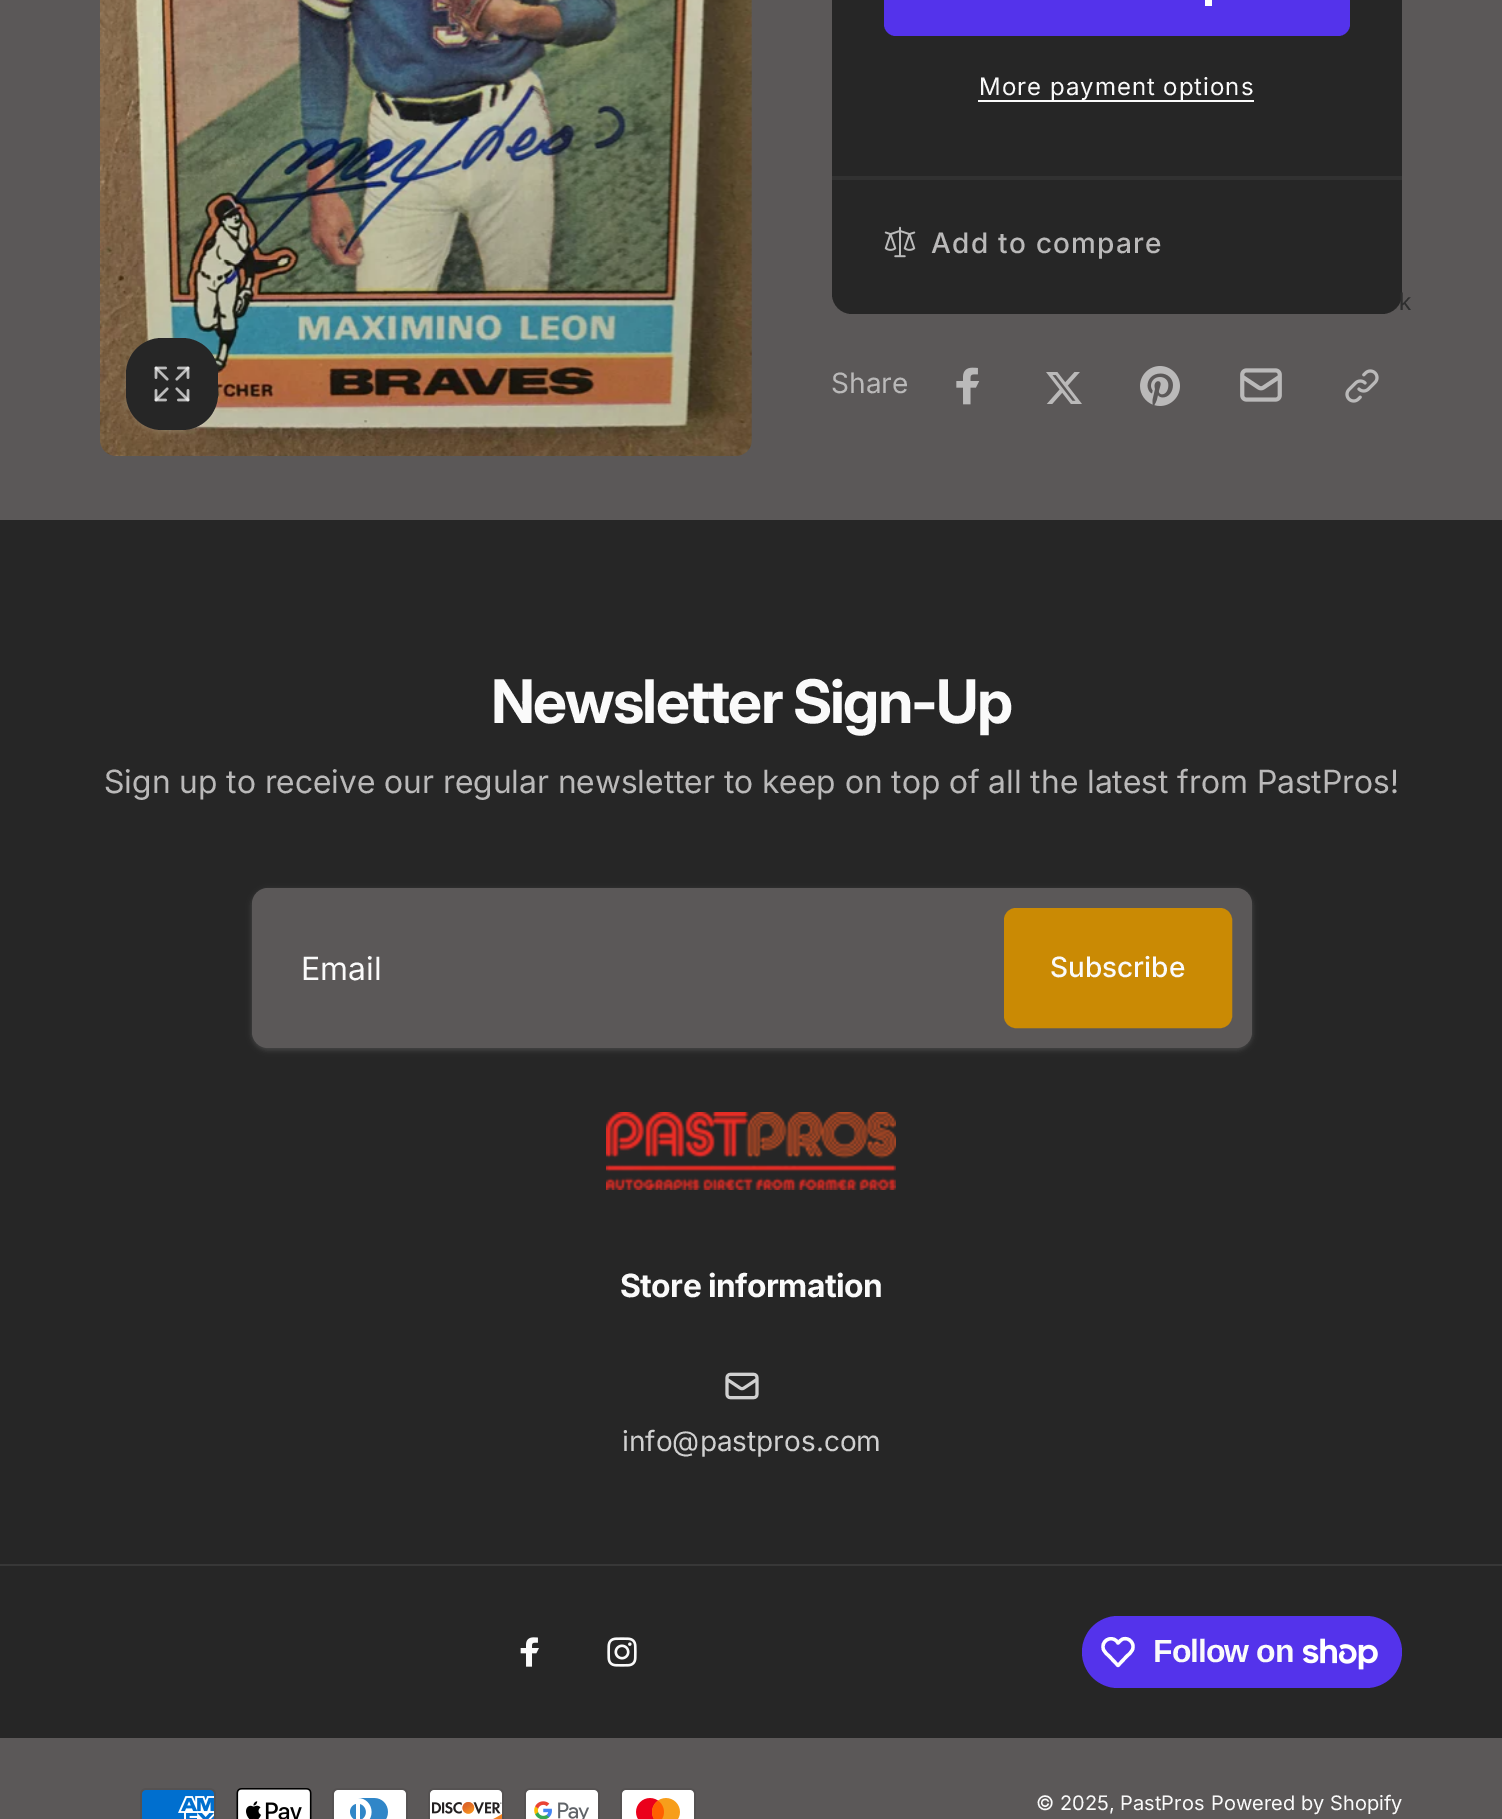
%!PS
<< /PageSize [1502 1819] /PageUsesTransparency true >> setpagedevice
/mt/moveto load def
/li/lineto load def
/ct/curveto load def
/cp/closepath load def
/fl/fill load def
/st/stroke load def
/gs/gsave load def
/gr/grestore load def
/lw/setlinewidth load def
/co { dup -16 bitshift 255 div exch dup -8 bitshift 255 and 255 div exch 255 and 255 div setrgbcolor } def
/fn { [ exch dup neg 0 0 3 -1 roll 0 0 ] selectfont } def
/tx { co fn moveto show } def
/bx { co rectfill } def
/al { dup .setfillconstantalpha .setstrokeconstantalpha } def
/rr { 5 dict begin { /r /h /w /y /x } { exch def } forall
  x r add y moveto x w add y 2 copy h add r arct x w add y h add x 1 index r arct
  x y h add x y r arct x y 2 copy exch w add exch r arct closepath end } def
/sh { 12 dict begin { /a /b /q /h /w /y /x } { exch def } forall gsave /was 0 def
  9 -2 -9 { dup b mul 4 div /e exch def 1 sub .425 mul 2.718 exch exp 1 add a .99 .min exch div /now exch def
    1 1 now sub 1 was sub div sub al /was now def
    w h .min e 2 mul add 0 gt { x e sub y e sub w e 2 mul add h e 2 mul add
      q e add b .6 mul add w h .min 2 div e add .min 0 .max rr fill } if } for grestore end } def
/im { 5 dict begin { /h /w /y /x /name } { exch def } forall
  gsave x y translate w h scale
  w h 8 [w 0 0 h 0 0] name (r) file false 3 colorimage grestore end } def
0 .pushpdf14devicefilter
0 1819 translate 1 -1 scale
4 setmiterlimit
0 0 1502 1819 16#262626 bx
0 0 1502 520 16#5B5858 bx
(media/1.raw) 100 0 652 456 im
16#FAFAFA co
126 340 92 92 36 2 .06 sh
126 340 92 92 36 3 .1 sh
16#262626 co
126 338 92 92 36 rr fl
(media/2.raw) 154 366 36 36 im
832 -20 570 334 20 rr fl
16#5433EB co
884 -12 466 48 12 rr fl
1205 0 7 6 16#FFFFFF bx
978 100 276 2 16#FAFAFA bx
832 176 570 4 16#313131 bx
(media/3.raw) 884 226 32 32 im
(media/4.raw) 1345 369 34 34 im
(media/5.raw) 956 367 24 38 im
(media/6.raw) 1046 372 36 32 im
(media/7.raw) 1140 366 40 40 im
(media/8.raw) 1240 368 42 34 im
16#FAFAFA co
252 890 1000 160 16 3 .1 sh
252 890 1000 160 16 2 .06 sh
16#5B5858 co
252 888 1000 160 16 rr fl
16#CA8A04 co
1005 909 226 118 11 rr gs fl gr
2 lw
st
(media/9.raw) 606 1112 290 78 im
(media/10.raw) 725 1372 34 28 im
0 1564 1502 2 16#373737 bx
(media/11.raw) 520 1637 19 30 im
(media/12.raw) 607 1637 30 30 im
16#5433EB co
1082 1616 320 72 36 rr fl
16#FFFFFF co
3.3 lw
1 setlinejoin
1116.5 1641 mt 1118 1643 li 1119.5 1641.5 1121 1639.5 1123 1639 ct 1129 1637 1135 1643.5 1132.5 1649.5 ct 1131.5 1652.5 1128.5 1654.5 1126.5 1656.5 ct 1118 1665.5 li 1109.5 1656.5 li 1107.5 1654.5 1104.5 1652.5 1103.5 1649.5 ct 1100.5 1641.5 1110.5 1635 1116.5 1641 ct cp st
(media/13.raw) 1303 1638 75 32 im
0 1738 1502 81 16#5B5858 bx
(media/14.raw) 140 1788 76 31 im
(media/15.raw) 236 1788 76 31 im
(media/16.raw) 332 1788 76 31 im
(media/17.raw) 428 1788 76 31 im
(media/18.raw) 524 1788 76 31 im
(media/19.raw) 620 1788 76 31 im
/Inter-Regular 24 fn
16#FAFAFA co
979 95 mt 1 0 (More payment options) ashow
/Inter-Medium 28 fn
16#BAB9B9 co
931 253 mt 1.25 0 (Add to compare) ashow
(k) 1399 310 /LiberationSans-Regular 24 16#2E2E2E tx
(Share) 831 393 /Inter-Regular 28 16#BAB9B9 tx
/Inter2-Bold 60 fn
16#FAFAFA co
491 723 mt -1.75 0 (Newsletter Sign-Up) ashow
(Sign up to receive our regular newsletter to keep on top of all the latest from PastPros!) 104 793 /Inter2-Regular 32 16#BAB9B9 tx
(Email) 301 980 /Inter2-Regular 32 16#FAFAFA tx
(Subscribe) 1050 977 /Inter-Medium 28 16#FAFAFA tx
/Inter-Bold 32 fn
620 1297 mt -.6 0 (Store information) ashow
(info@pastpros.com) 622 1451 /Inter-Regular 28 16#D0D0D0 tx
/LiberationSans-Bold 32 fn
16#FAFAFA co
1153 1662 mt -1 0 (Follow on) ashow
(© 2025, PastPros) 1036 1810 /Inter-Regular 20 16#FAFAFA tx
(Powered by Shopify) 1211 1810 /Inter-Regular 20 16#FAFAFA tx
.poppdf14devicefilter showpage
